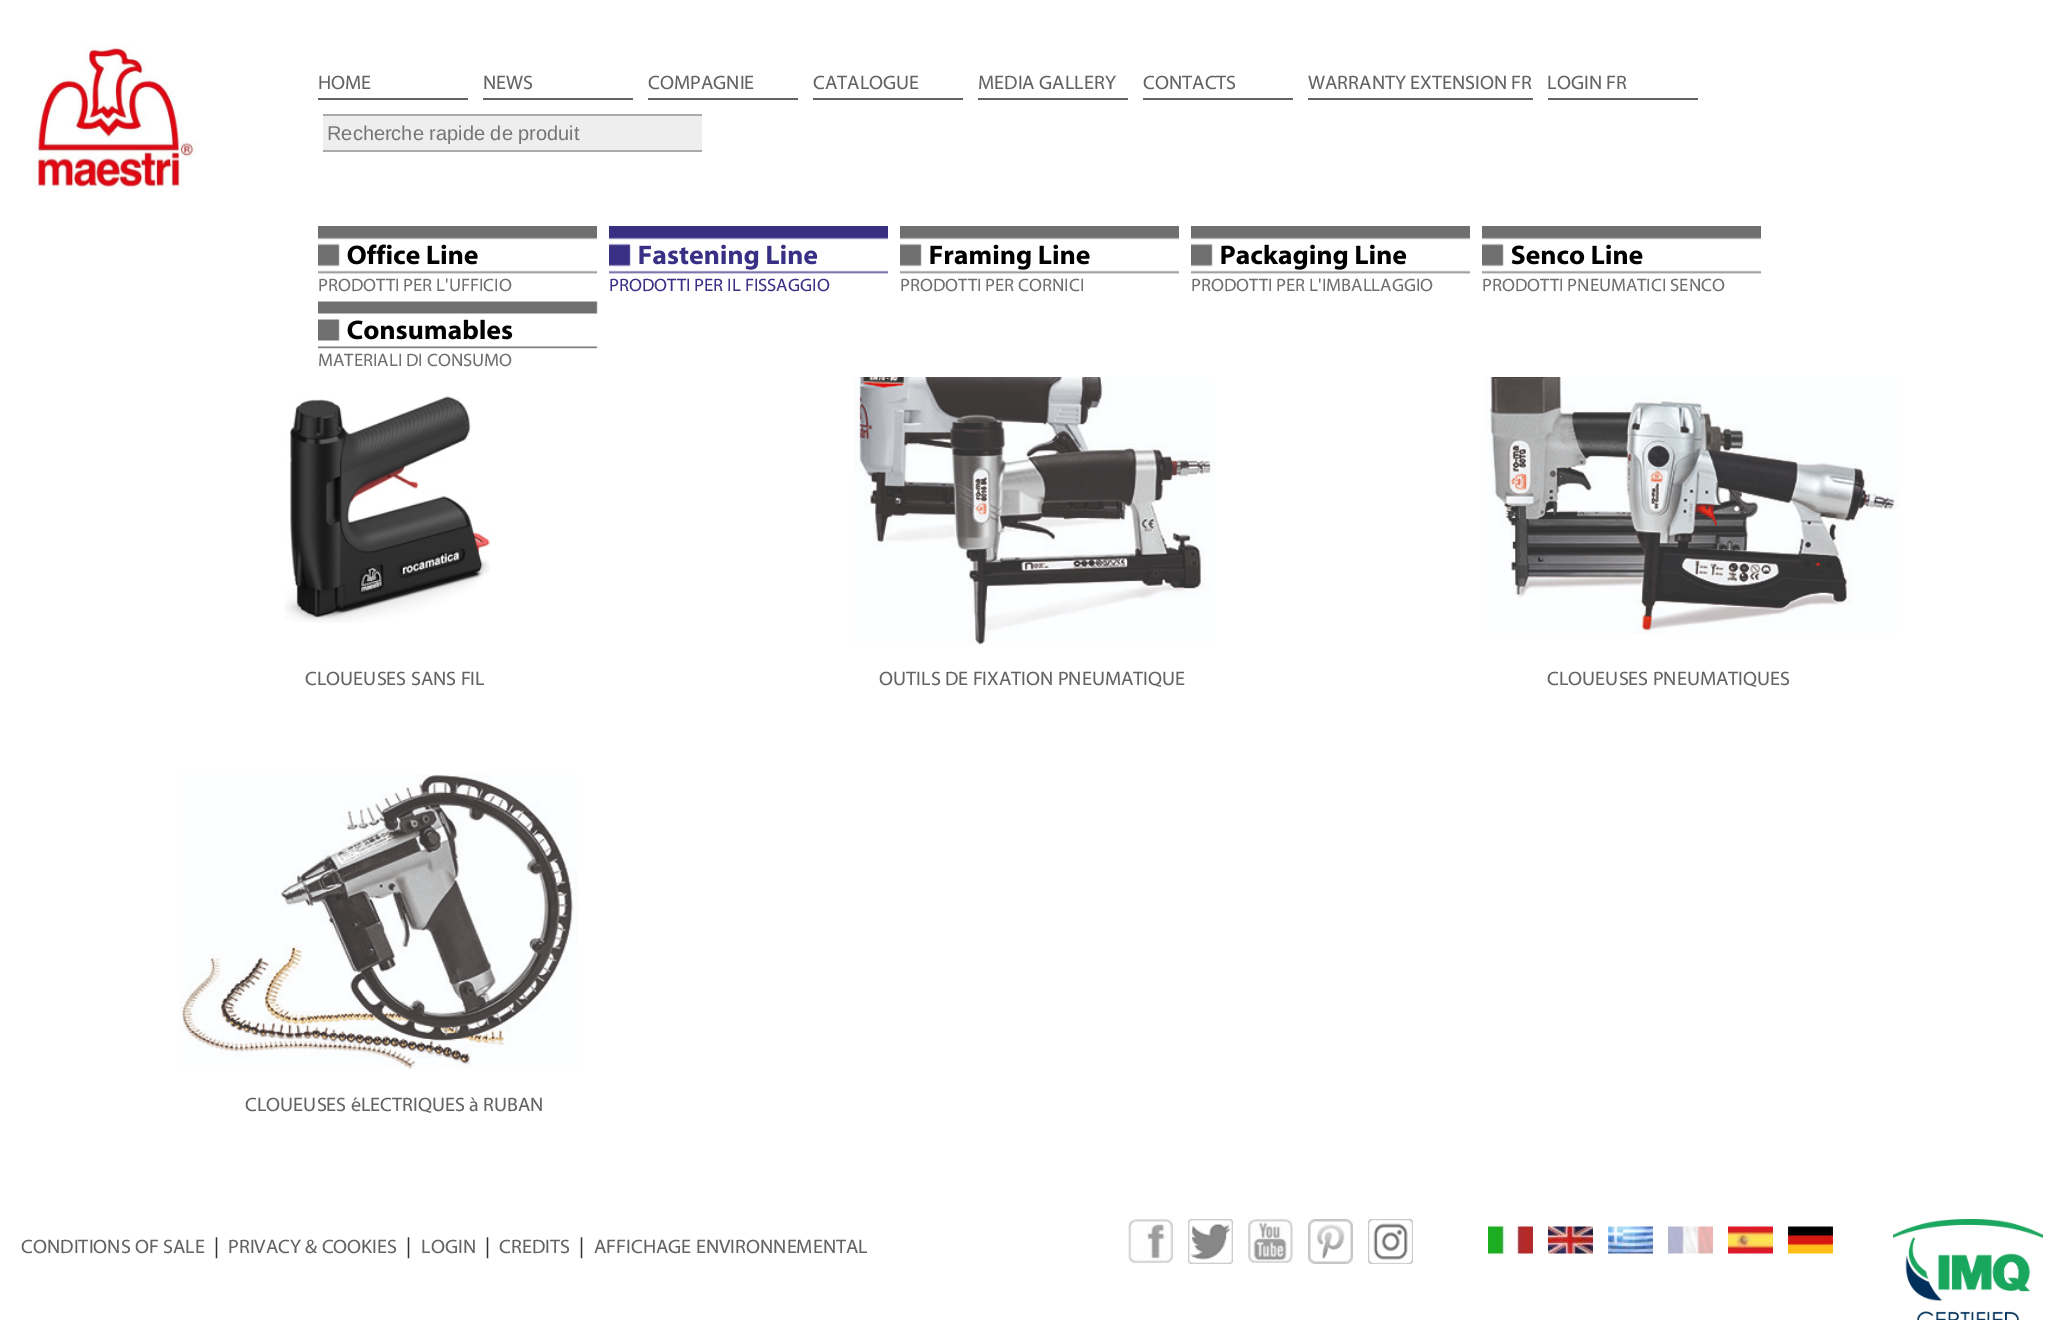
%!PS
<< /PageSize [2064 1320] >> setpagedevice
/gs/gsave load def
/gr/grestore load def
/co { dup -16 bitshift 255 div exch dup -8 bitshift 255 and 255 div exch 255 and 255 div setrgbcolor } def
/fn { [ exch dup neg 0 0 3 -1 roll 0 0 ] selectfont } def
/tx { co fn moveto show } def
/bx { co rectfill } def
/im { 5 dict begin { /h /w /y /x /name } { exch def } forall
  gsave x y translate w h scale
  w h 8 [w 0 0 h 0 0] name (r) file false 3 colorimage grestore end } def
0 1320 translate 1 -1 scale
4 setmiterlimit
0 0 2064 1320 16#FFFFFF bx
(media/1.raw) 33 45 164 143 im
318 98 150 2 16#636363 bx
483 98 150 2 16#636363 bx
648 98 150 2 16#636363 bx
813 98 150 2 16#636363 bx
978 98 150 2 16#636363 bx
1143 98 150 2 16#636363 bx
1308 98 225 2 16#636363 bx
1548 98 150 2 16#636363 bx
323 116 379 34 16#EEEEEE bx
323 114 379 2 16#AAAAAA bx
323 150 379 2 16#AAAAAA bx
(media/8.raw) 284 396 206 227 im
(media/9.raw) 854 377 361 269 im
(media/10.raw) 1483 377 417 257 im
(media/11.raw) 179 774 399 296 im
(media/12.raw) 1128 1219 45 44 im
(media/13.raw) 1188 1219 45 45 im
(media/14.raw) 1248 1219 45 44 im
(media/15.raw) 1308 1219 45 45 im
(media/16.raw) 1368 1219 45 45 im
(media/17.raw) 1488 1226 45 28 im
(media/18.raw) 1548 1226 45 28 im
(media/19.raw) 1608 1226 45 28 im
(media/20.raw) 1668 1226 45 28 im
(media/21.raw) 1728 1226 45 28 im
(media/22.raw) 1788 1226 45 28 im
(media/23.raw) 1893 1219 150 101 im
(HOME) 318 89 /Myriad-Regular 19.5 16#636363 tx
(NEWS) 483 89 /Myriad-Regular 19.5 16#636363 tx
(COMPAGNIE) 648 89 /Myriad-Regular 19.5 16#636363 tx
(CATALOGUE) 813 89 /Myriad-Regular 19.5 16#636363 tx
(MEDIA GALLERY) 978 89 /Myriad-Regular 19.5 16#636363 tx
(CONTACTS) 1143 89 /Myriad-Regular 19.5 16#636363 tx
(WARRANTY EXTENSION FR) 1308 89 /Myriad-Regular 19.5 16#636363 tx
(LOGIN FR) 1547 89 /Myriad-Regular 19.5 16#636363 tx
gs
327 122 375 22 rectclip
(Recherche rapide de produit) 327 140 /LiberationSans-Regular 20 16#757575 tx
gr
(Office Line) 347 264 /Myriad-Bold 27 16#000000 tx
(media/2.raw) 318 226 279 48 im
(PRODOTTI PER L'UFFICIO) 318 291 /Myriad-Regular 18 16#706F6F tx
(Fastening Line) 638 264 /Myriad-Bold 27 16#392F84 tx
(media/3.raw) 609 226 279 48 im
(PRODOTTI PER IL FISSAGGIO) 609 291 /Myriad-Regular 18 16#392F84 tx
(Framing Line) 929 264 /Myriad-Bold 27 16#000000 tx
(media/4.raw) 900 226 279 48 im
(PRODOTTI PER CORNICI) 900 291 /Myriad-Regular 18 16#706F6F tx
(Packaging Line) 1220 264 /Myriad-Bold 27 16#000000 tx
(media/5.raw) 1191 226 279 48 im
(PRODOTTI PER L'IMBALLAGGIO) 1191 291 /Myriad-Regular 18 16#706F6F tx
(Senco Line) 1511 264 /Myriad-Bold 27 16#000000 tx
(media/6.raw) 1482 226 279 48 im
(PRODOTTI PNEUMATICI SENCO) 1482 291 /Myriad-Regular 18 16#706F6F tx
(Consumables) 347 339 /Myriad-Bold 27 16#000000 tx
(media/7.raw) 318 301 280 48 im
(MATERIALI DI CONSUMO) 318 366 /Myriad-Regular 18 16#706F6F tx
(CLOUEUSES SANS FIL) 305 685 /Myriad-Regular 19.5 16#636363 tx
(OUTILS DE FIXATION PNEUMATIQUE) 879 685 /Myriad-Regular 19.5 16#636363 tx
(CLOUEUSES PNEUMATIQUES) 1547 685 /Myriad-Regular 19.5 16#636363 tx
(CLOUEUSES éLECTRIQUES à RUBAN) 245 1111 /Myriad-Regular 19.5 16#636363 tx
(CONDITIONS OF SALE) 21 1253 /Myriad-Regular 19.5 16#636363 tx
(|) 214 1253 /Myriad-Regular 21 16#333333 tx
(PRIVACY & COOKIES) 228 1253 /Myriad-Regular 19.5 16#636363 tx
(|) 406 1253 /Myriad-Regular 21 16#333333 tx
(LOGIN) 421 1253 /Myriad-Regular 19.5 16#636363 tx
(|) 485 1253 /Myriad-Regular 21 16#333333 tx
(CREDITS) 499 1253 /Myriad-Regular 19.5 16#636363 tx
(|) 579 1253 /Myriad-Regular 21 16#333333 tx
(AFFICHAGE ENVIRONNEMENTAL) 594 1253 /Myriad-Regular 19.5 16#636363 tx
showpage
